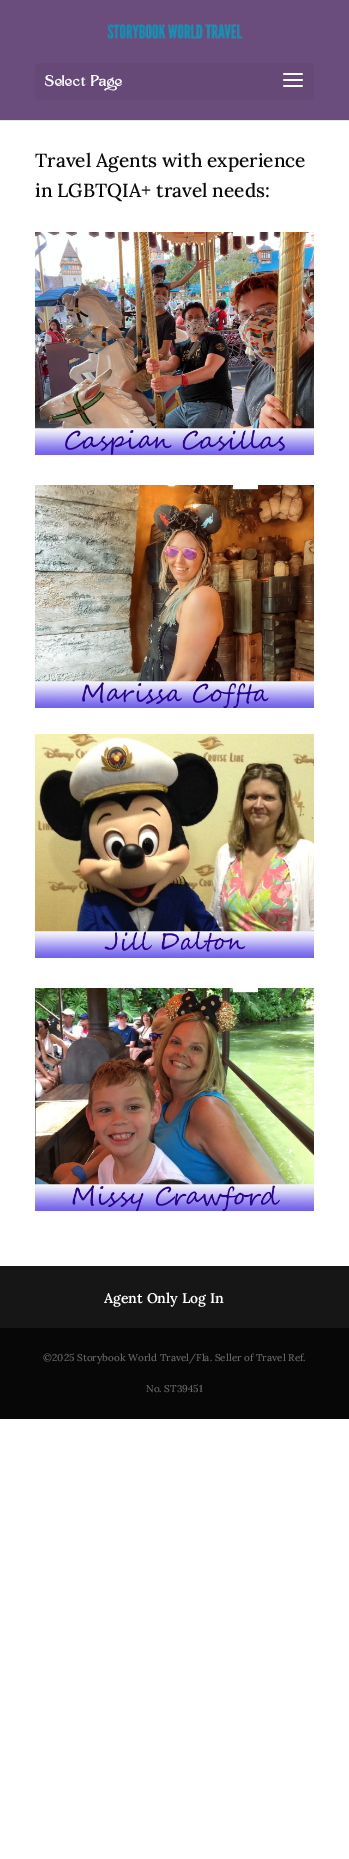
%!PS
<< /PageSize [349 1859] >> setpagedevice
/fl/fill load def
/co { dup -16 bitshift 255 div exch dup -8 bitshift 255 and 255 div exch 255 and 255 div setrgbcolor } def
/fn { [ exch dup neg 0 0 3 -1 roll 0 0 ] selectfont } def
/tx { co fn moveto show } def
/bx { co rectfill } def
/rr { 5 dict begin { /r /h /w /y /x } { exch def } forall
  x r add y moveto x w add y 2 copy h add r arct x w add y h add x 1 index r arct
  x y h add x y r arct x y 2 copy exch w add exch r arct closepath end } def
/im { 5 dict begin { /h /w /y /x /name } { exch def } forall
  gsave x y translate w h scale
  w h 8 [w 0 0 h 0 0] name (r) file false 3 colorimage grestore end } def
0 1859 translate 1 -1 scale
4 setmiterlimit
0 0 349 1859 16#FFFFFF bx
0 120 349 1 16#E6E6E6 bx
0 0 349 120 16#6B4D7D bx
(media/1.raw) 107 23 136 16 im
16#664977 co
35 63 279 37 5 rr fl
(media/2.raw) 283 73 20 14 im
(media/3.raw) 35 232 279 223 im
(media/4.raw) 35 485 279 223 im
(media/5.raw) 35 734 279 224 im
(media/6.raw) 35 988 279 223 im
0 1266 349 62 16#161616 bx
0 1328 349 91 16#070707 bx
(Select Page) 45 86 /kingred-Bold 14 16#FFFFFF tx
(Travel Agents with experience) 35 167 /Lora-Medium 19 16#0A0A0A tx
(in LGBTQIA+ travel needs:) 35 197 /Lora-Medium 19 16#0A0A0A tx
(Agent Only Log In) 104 1303 /Lora-SemiBold 14 16#FFFFFF tx
(©2025 Storybook World Travel/Fla. Seller of Travel Ref.) 43 1361 /Lora-Medium 10 16#666666 tx
(No. ST39451) 146 1392 /Lora-Medium 10 16#666666 tx
showpage
